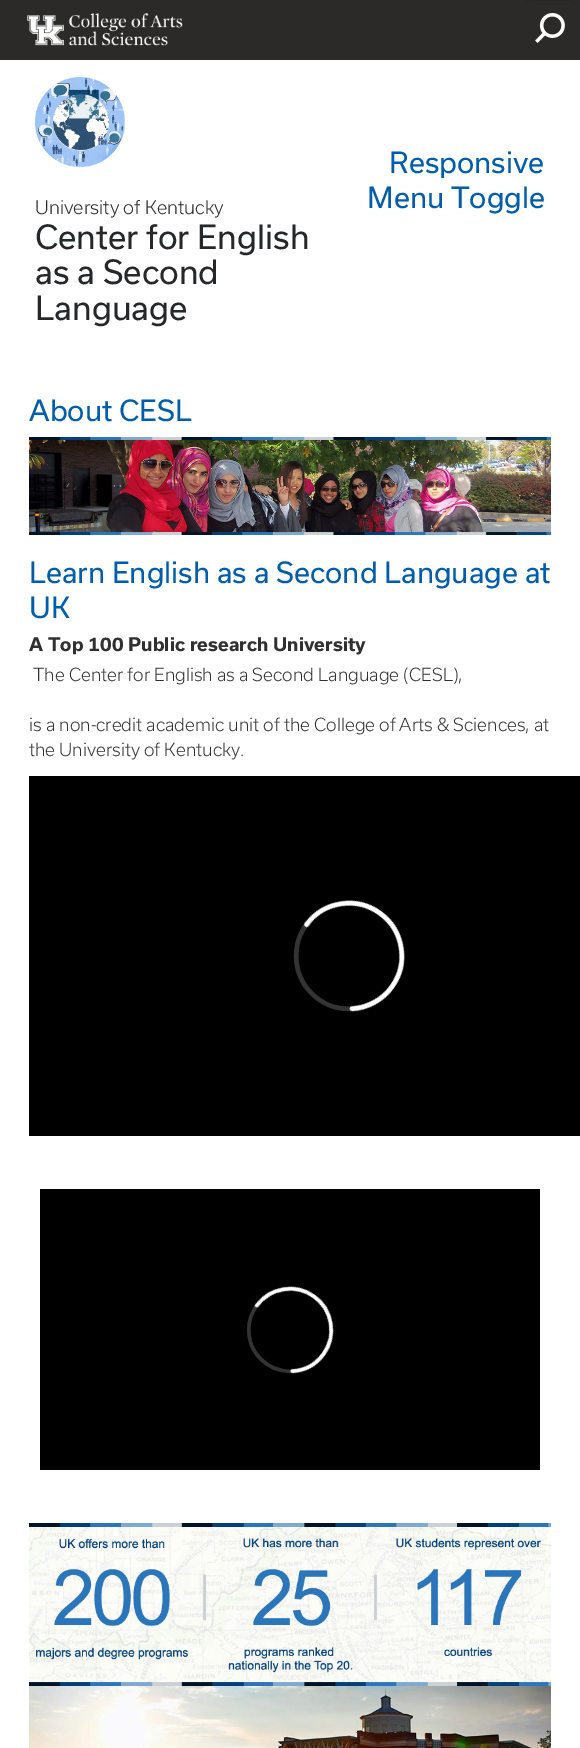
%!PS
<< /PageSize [580 1748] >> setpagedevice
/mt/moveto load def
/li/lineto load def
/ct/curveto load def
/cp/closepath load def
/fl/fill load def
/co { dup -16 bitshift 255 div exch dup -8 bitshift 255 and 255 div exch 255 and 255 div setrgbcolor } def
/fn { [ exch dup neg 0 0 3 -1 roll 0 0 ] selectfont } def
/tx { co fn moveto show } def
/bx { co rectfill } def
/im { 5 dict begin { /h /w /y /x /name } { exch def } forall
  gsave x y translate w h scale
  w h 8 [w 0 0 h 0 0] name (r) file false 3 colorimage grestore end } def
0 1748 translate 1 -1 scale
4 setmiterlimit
0 0 580 1748 16#FFFFFF bx
0 0 580 60 16#2C2A29 bx
(media/1.raw) 27 13 156 33 im
16#292726 co
529 1 mt 571 1 li 573 1 575 3 575 5 ct 575 -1 569 0 564 0 ct 536 0 li 531 0 525 -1 525 5 ct 525 3 527 1 529 1 ct cp fl
(media/2.raw) 535 13 30 30 im
(media/3.raw) 35 77 90 90 im
(media/4.raw) 29 437 522 98 im
(media/5.raw) 29 776 551 360 im
(media/6.raw) 40 1189 500 281 im
(media/7.raw) 29 1523 522 225 im
(Responsive) 389 173 /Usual-Regular 28 16#005DAA tx
(Menu Toggle) 367 208 /Usual-Regular 28 16#005DAA tx
(University of Kentucky) 35 214 /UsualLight-Light 18 16#252729 tx
(Center for English) 35 249 /Usual-Regular 32 16#252729 tx
(as a Second) 35 284 /Usual-Regular 32 16#252729 tx
(Language) 35 320 /Usual-Regular 32 16#252729 tx
(About CESL) 29 421 /Usual-Regular 28 16#005DAA tx
(Learn English as a Second Language at) 29 583 /Usual-Regular 28 16#005DAA tx
(UK) 29 618 /Usual-Regular 28 16#005DAA tx
(A Top 100 Public research University) 29 651 /Usual-Bold 18 16#303030 tx
(The Center for English as a Second Language \(CESL\),) 33 681 /UsualLight-Light 17.25 16#303030 tx
(is a non-credit academic unit of the College of Arts & Sciences, at) 29 731 /UsualLight-Light 17.25 16#303030 tx
(the University of Kentucky.) 29 756 /UsualLight-Light 17.25 16#303030 tx
showpage
